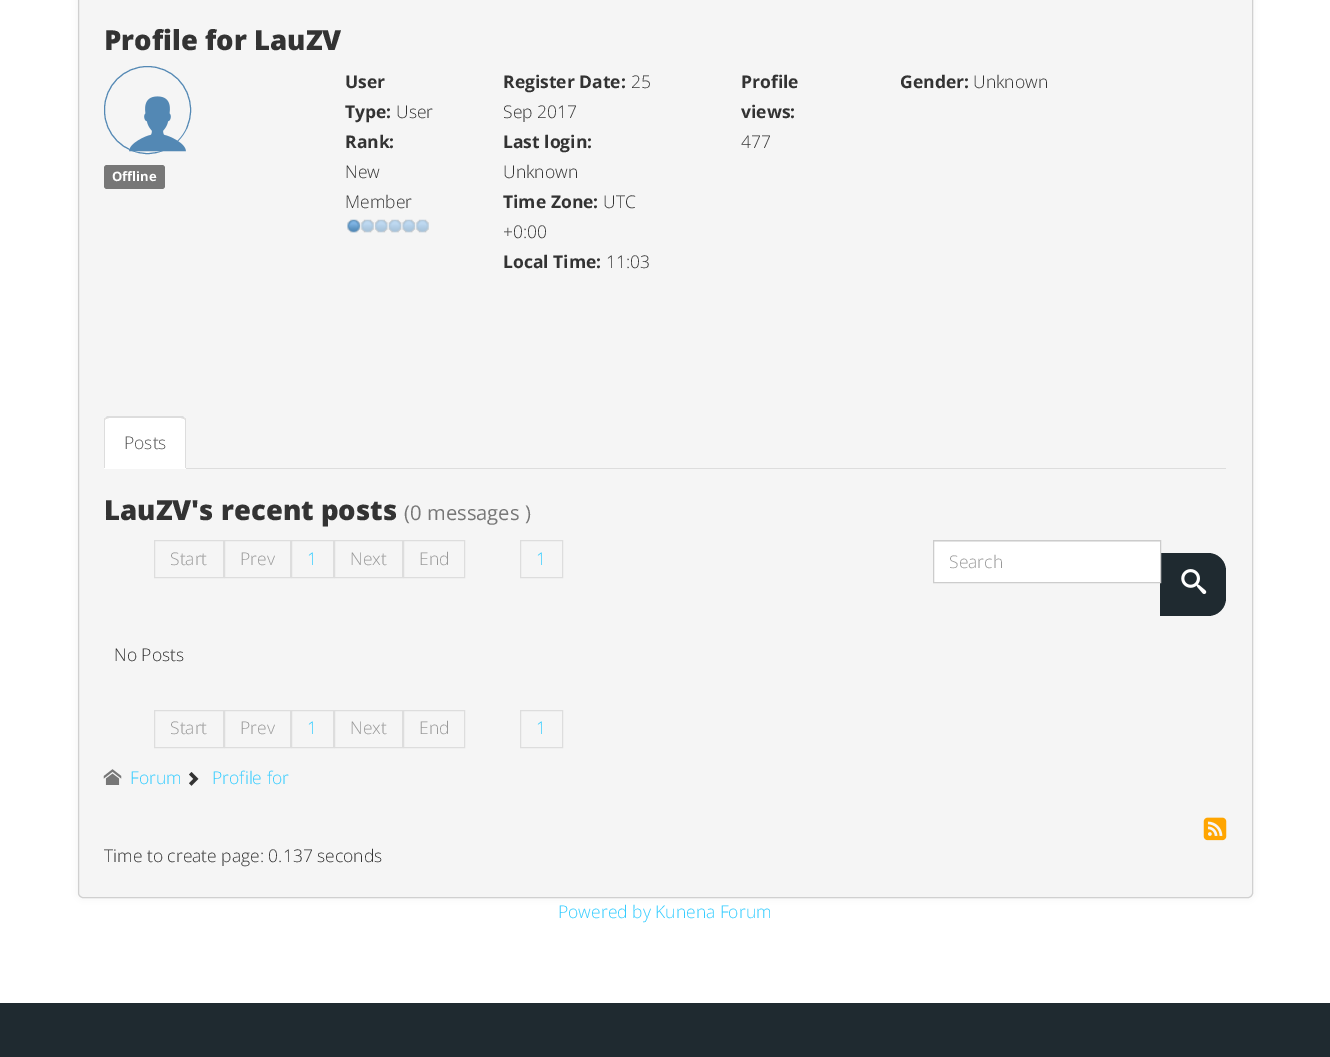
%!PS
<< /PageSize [1330 1057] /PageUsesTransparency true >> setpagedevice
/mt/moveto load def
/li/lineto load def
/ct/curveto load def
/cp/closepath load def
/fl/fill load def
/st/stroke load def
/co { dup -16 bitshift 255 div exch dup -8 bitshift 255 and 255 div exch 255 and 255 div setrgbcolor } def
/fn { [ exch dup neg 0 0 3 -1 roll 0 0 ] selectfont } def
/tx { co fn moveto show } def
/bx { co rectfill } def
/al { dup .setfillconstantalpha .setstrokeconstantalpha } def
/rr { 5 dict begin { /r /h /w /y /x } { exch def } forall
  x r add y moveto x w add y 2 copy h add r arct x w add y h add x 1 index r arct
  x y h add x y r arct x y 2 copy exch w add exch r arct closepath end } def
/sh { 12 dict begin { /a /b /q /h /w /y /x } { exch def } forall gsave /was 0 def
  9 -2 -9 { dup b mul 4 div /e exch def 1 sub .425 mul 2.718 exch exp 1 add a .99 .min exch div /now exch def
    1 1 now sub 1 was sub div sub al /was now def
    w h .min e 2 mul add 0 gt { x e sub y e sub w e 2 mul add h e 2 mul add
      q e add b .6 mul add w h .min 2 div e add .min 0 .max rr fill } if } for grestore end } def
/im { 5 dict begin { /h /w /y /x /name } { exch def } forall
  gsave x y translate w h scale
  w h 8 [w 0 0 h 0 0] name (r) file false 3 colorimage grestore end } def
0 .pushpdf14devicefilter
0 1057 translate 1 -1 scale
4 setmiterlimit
0 0 1330 1057 16#FFFFFF bx
16#000000 co
78 -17 1175 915 5 4 .05 sh
16#F5F5F5 co
78 -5 1175 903 5 rr fl
0.15 al
16#000000 co
78.5 -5.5 1174 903 4.5 rr st
1 al
16#5388B4 co
104.5 66.5 86 87 43 rr st
(media/1.raw) 129 96 57 56 im
16#777777 co
104 165 61 24 3 rr fl
(media/2.raw) 347 219 82 14 im
186 468 1040 1 16#DDDDDD bx
16#FFFFFF co
109 416 mt 181 416 li 184 416 186 418 186 421 ct 186 469 li 104 469 li 104 421 li 104 418 106 416 109 416 ct cp fl
16#DDDDDD co
109 418 mt 106 419 li 105 418 li 107 416 li 183 416 li 185 418 li 184 419 li 181 418 li cp fl
185 418 mt 186 418 186 420 186 421 ct 186 468 li 185 468 li 185 420 li 184 419 li cp fl
104 468 mt 104 421 li 104 420 104 418 105 418 ct 106 419 li 105 420 li 105 468 li cp fl
154.5 540.5 69 37 rectstroke
224.5 540.5 66 37 rectstroke
291.5 540.5 42 37 rectstroke
334.5 540.5 68 37 rectstroke
403.5 540.5 61 37 rectstroke
520.5 540.5 42 37 rectstroke
934 542 226 40 16#FFFFFF bx
934 541 226 1 16#ECECEC bx
16#1F2A30 co
1160 553 mt 1208 553 li 1218 553 1226 561 1226 571 ct 1226 598 li 1226 608 1218 616 1208 616 ct 1160 616 li cp fl
16#CCCCCC co
933.5 540.5 227 42 rectstroke
(media/3.raw) 1181 569 26 25 im
16#DDDDDD co
154.5 710.5 69 37 rectstroke
224.5 710.5 66 37 rectstroke
291.5 710.5 42 37 rectstroke
334.5 710.5 68 37 rectstroke
403.5 710.5 61 37 rectstroke
520.5 710.5 42 37 rectstroke
(media/4.raw) 103 769 19 16 im
(media/5.raw) 189 772 10 14 im
(media/6.raw) 1203 817 24 24 im
0 1003 1330 54 16#1F2A30 bx
(Profile for LauZV) 104 50 /OpenSans-ExtraBold 27.5 16#333333 tx
(Offline) 112 181 /OpenSans-Bold 13 16#FFFFFF tx
(User) 345 88 /OpenSans-Bold 17.5 16#333333 tx
(Type:) 345 118 /OpenSans-Bold 17.5 16#333333 tx
(User) 396 118 /OpenSans-Light 17.5 16#333333 tx
(Rank:) 345 148 /OpenSans-Bold 17.5 16#333333 tx
(New) 345 178 /OpenSans-Light 17.5 16#333333 tx
(Member) 345 208 /OpenSans-Light 17.5 16#333333 tx
(Register Date:) 503 88 /OpenSans-Bold 17.5 16#333333 tx
(25) 631 88 /OpenSans-Light 17.5 16#333333 tx
(Sep 2017) 503 118 /OpenSans-Light 17.5 16#333333 tx
(Last login:) 503 148 /OpenSans-Bold 17.5 16#333333 tx
(Unknown) 503 178 /OpenSans-Light 17.5 16#333333 tx
(Time Zone:) 503 208 /OpenSans-Bold 17.5 16#333333 tx
(UTC) 603 208 /OpenSans-Light 17.5 16#333333 tx
(+0:00) 503 238 /OpenSans-Light 17.5 16#333333 tx
(Local Time:) 503 268 /OpenSans-Bold 17.5 16#333333 tx
(11:03) 606 268 /OpenSans-Light 17.5 16#333333 tx
(Profile) 741 88 /OpenSans-Bold 17.5 16#333333 tx
(views:) 741 118 /OpenSans-Bold 17.5 16#333333 tx
(477) 741 148 /OpenSans-Light 17.5 16#333333 tx
(Gender:) 900 88 /OpenSans-Bold 17.5 16#333333 tx
(Unknown) 973 88 /OpenSans-Light 17.5 16#333333 tx
(Posts) 124 449 /OpenSans-Light 17.5 16#555555 tx
(LauZV's recent posts) 104 520 /OpenSans-ExtraBold 27.5 16#333333 tx
(\(0 messages \)) 404 520 /OpenSans-Regular 20.25 16#777777 tx
(Start) 170 565 /OpenSans-Light 17.5 16#999999 tx
(Prev) 240 565 /OpenSans-Light 17.5 16#999999 tx
(1) 307 565 /OpenSans-Light 17.5 16#34CCFF tx
(Next) 350 565 /OpenSans-Light 17.5 16#999999 tx
(End) 419 565 /OpenSans-Light 17.5 16#999999 tx
(1) 536 565 /OpenSans-Light 17.5 16#34CCFF tx
(Search) 949 568 /OpenSans-Light 17.5 16#999999 tx
(No Posts) 114 661 /OpenSans-Light 17.5 16#333333 tx
(Start) 170 734 /OpenSans-Light 17.5 16#999999 tx
(Prev) 240 734 /OpenSans-Light 17.5 16#999999 tx
(1) 307 734 /OpenSans-Light 17.5 16#34CCFF tx
(Next) 350 734 /OpenSans-Light 17.5 16#999999 tx
(End) 419 734 /OpenSans-Light 17.5 16#999999 tx
(1) 536 734 /OpenSans-Light 17.5 16#34CCFF tx
(Forum) 130 784 /OpenSans-Light 17.5 16#34CCFF tx
(Profile for) 212 784 /OpenSans-Light 17.5 16#34CCFF tx
(Time to create page: 0.137 seconds) 104 862 /OpenSans-Light 17.5 16#333333 tx
(Powered by Kunena Forum) 558 918 /OpenSans-Light 17.5 16#34CCFF tx
.poppdf14devicefilter showpage
